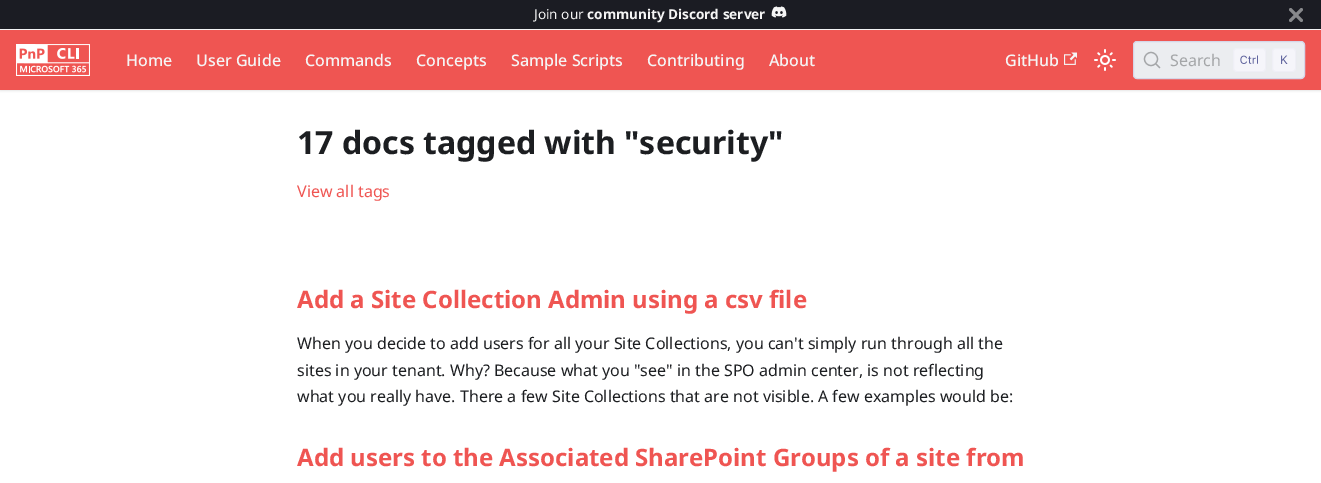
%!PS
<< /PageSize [1321 483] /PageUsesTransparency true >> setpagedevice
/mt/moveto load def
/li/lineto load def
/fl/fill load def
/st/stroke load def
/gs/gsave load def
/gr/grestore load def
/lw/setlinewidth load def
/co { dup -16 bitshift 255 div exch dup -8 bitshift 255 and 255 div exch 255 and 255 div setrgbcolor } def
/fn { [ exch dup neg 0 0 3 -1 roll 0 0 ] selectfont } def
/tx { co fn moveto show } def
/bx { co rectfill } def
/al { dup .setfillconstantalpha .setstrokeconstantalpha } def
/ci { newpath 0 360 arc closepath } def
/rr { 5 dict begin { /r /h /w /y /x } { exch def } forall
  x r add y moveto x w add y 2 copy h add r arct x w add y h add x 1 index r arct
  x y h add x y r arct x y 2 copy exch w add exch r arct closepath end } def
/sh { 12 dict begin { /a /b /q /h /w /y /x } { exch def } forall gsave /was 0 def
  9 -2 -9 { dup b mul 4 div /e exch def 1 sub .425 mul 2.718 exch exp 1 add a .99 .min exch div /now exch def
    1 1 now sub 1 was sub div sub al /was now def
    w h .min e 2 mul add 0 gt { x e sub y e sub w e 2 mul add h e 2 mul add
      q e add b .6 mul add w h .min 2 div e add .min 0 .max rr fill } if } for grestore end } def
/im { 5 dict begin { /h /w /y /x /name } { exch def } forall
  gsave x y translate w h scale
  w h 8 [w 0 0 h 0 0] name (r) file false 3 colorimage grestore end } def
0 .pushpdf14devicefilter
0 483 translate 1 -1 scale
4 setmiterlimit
0 0 1321 483 16#FFFFFF bx
0 0 1321 29 16#1B1C23 bx
0 29 1321 1 16#F5F6F7 bx
(media/1.raw) 771 6 16 12 im
gs
1289 8 14 14 rectclip
16#88898C co
2.9 lw
1289.5 8.5 mt 1302.5 21.5 li 1302.5 8.5 mt 1289.5 21.5 li st
gr
16#000000 co
0 31 1321 60 0 1 .1 sh
0 30 1321 60 16#EF5552 bx
(media/2.raw) 16 44 74 32 im
(media/3.raw) 1064 52 13 13 im
(media/4.raw) 1094 49 22 22 im
16#EBEDF0 co
1133.5 41.5 171 37 3.5 rr gs fl gr
16#D6D6E7 co
st
16#A4A6A8 co
1.2 lw
1151 59 6.5 ci st
1.3 lw
1 setlinecap
1 setlinejoin
1159.5 67.5 mt 1156 64 li st
16#F5F5FA co
1233 48 33 24 4 rr fl
0.2 al
16#D6D6E7 co
1 lw
0 setlinecap
0 setlinejoin
1233.5 48.5 32 23 3.5 rr st
1 al
(media/5.raw) 1240 55 18 9 im
16#F5F5FA co
1272 48 24 24 4 rr fl
0.2 al
16#D6D6E7 co
1272.5 48.5 23 23 3.5 rr st
1 al
(media/6.raw) 1281 55 7 9 im
(Join our) 534 19 /NotoSans-Regular 13.6 16#F5F5F5 tx
(community Discord server) 587 19 /NotoSans-Bold 13.6 16#F5F5F5 tx
(Home) 126 66 /NotoSans-Medium 16 16#F5F5F5 tx
(User Guide) 196 66 /NotoSans-Medium 16 16#F5F5F5 tx
(Commands) 305 66 /NotoSans-Medium 16 16#F5F5F5 tx
(Concepts) 416 66 /NotoSans-Medium 16 16#F5F5F5 tx
(Sample Scripts) 511 66 /NotoSans-Medium 16 16#F5F5F5 tx
(Contributing) 647 66 /NotoSans-Medium 16 16#F5F5F5 tx
(About) 769 66 /NotoSans-Medium 16 16#F5F5F5 tx
(GitHub) 1005 66 /NotoSans-Medium 16 16#F5F5F5 tx
(Search) 1170 66 /NotoSans-Regular 16 16#A4A6A8 tx
(17 docs tagged with "security") 297 154 /NotoSans-Bold 32 16#1C1E21 tx
(View all tags) 297 197 /NotoSans-Regular 16 16#EF5552 tx
(Add a Site Collection Admin using a csv file) 297 308 /NotoSans-Bold 24 16#EF5552 tx
(When you decide to add users for all your Site Collections, you can't simply run through all the) 297 349 /NotoSans-Regular 16 16#1C1E21 tx
(sites in your tenant. Why? Because what you "see" in the SPO admin center, is not reflecting) 297 376 /NotoSans-Regular 16 16#1C1E21 tx
(what you really have. There a few Site Collections that are not visible. A few examples would be:) 297 402 /NotoSans-Regular 16 16#1C1E21 tx
(Add users to the Associated SharePoint Groups of a site from) 297 466 /NotoSans-Bold 24 16#EF5552 tx
.poppdf14devicefilter showpage
